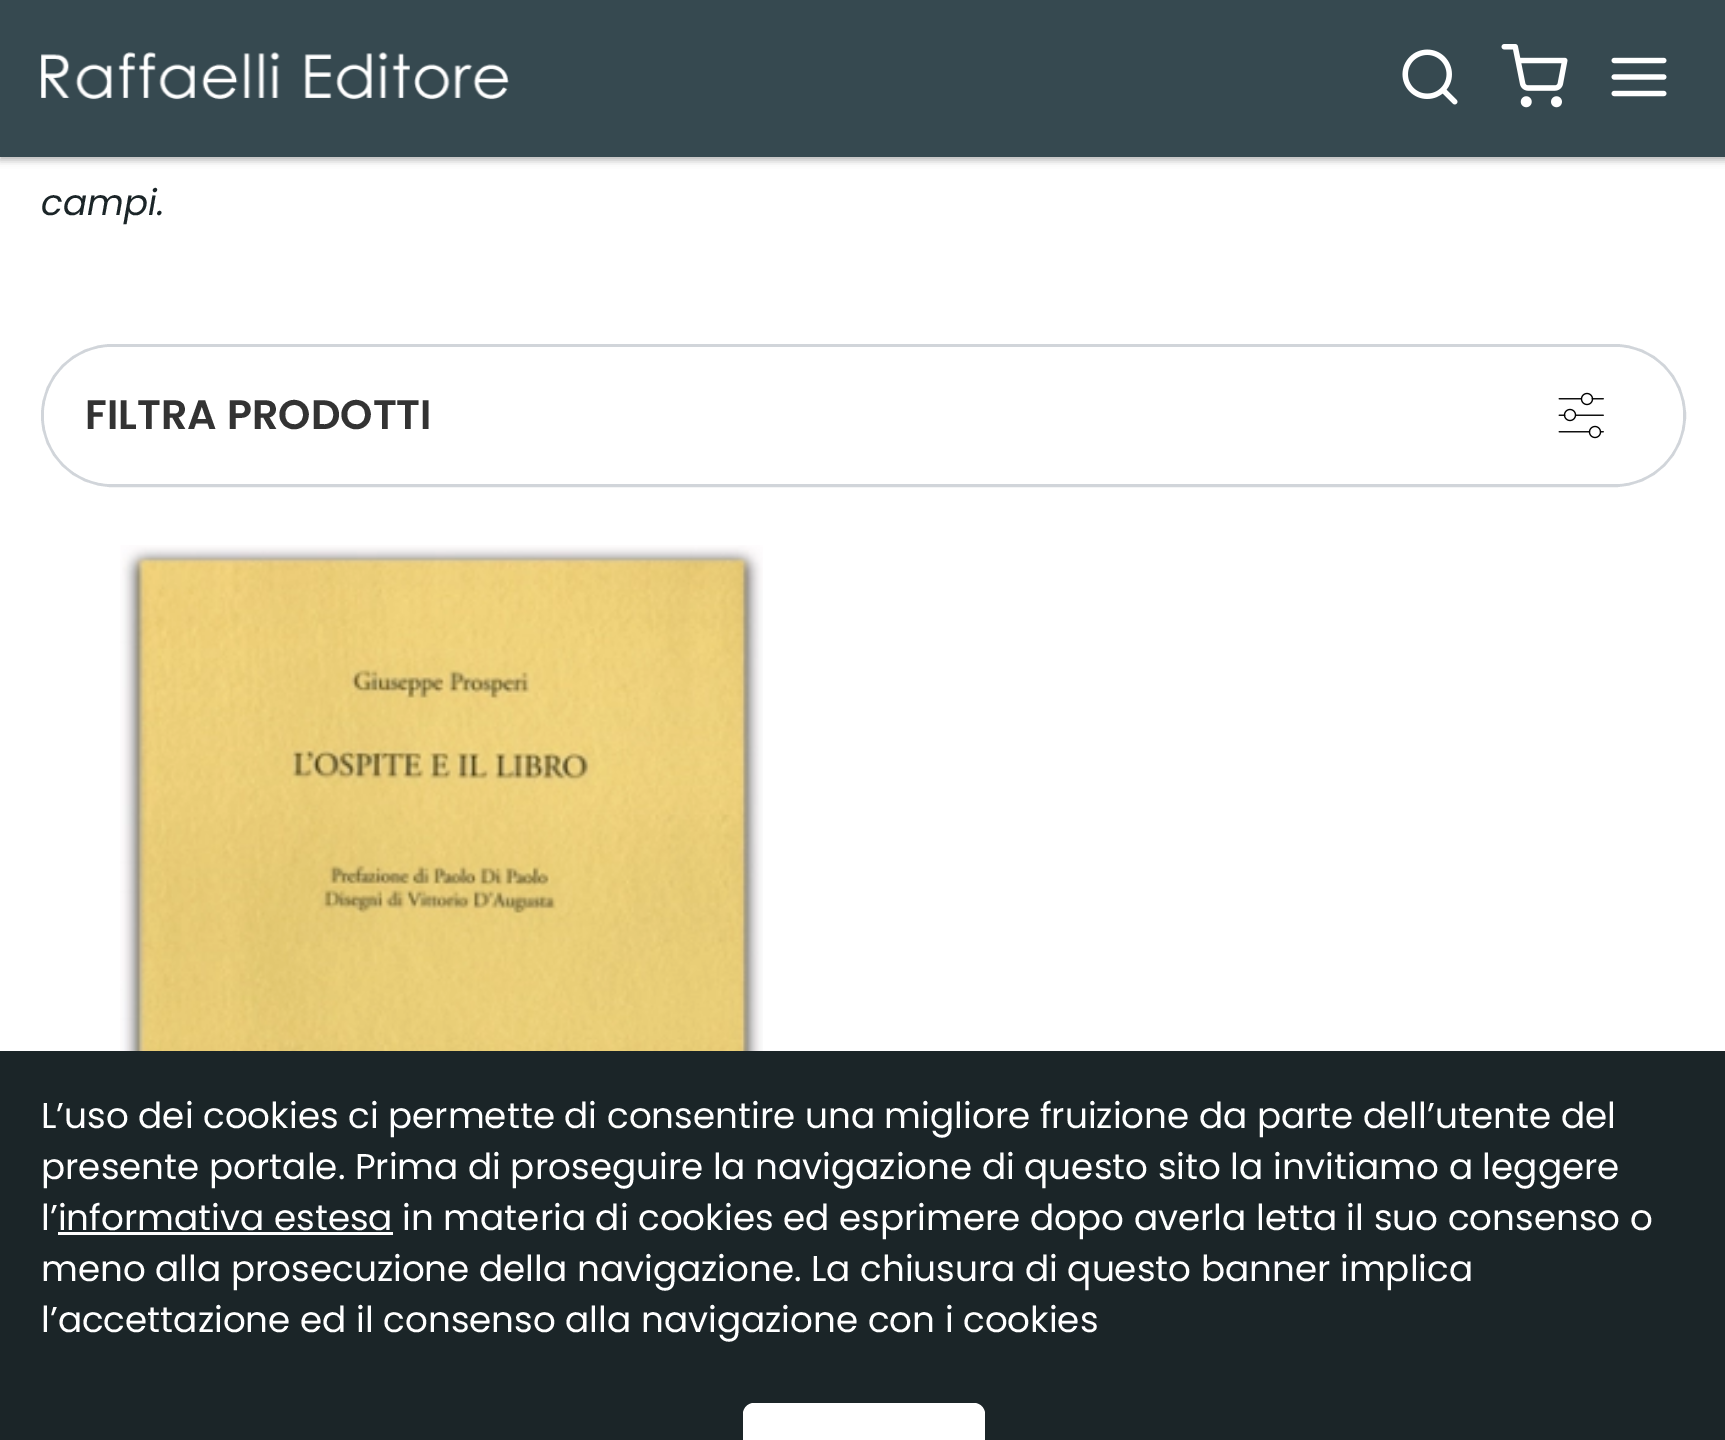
%!PS
<< /PageSize [1725 1440] /PageUsesTransparency true >> setpagedevice
/mt/moveto load def
/li/lineto load def
/ct/curveto load def
/cp/closepath load def
/fl/fill load def
/st/stroke load def
/lw/setlinewidth load def
/co { dup -16 bitshift 255 div exch dup -8 bitshift 255 and 255 div exch 255 and 255 div setrgbcolor } def
/fn { [ exch dup neg 0 0 3 -1 roll 0 0 ] selectfont } def
/tx { co fn moveto show } def
/bx { co rectfill } def
/al { dup .setfillconstantalpha .setstrokeconstantalpha } def
/rr { 5 dict begin { /r /h /w /y /x } { exch def } forall
  x r add y moveto x w add y 2 copy h add r arct x w add y h add x 1 index r arct
  x y h add x y r arct x y 2 copy exch w add exch r arct closepath end } def
/sh { 12 dict begin { /a /b /q /h /w /y /x } { exch def } forall gsave /was 0 def
  9 -2 -9 { dup b mul 4 div /e exch def 1 sub .425 mul 2.718 exch exp 1 add a .99 .min exch div /now exch def
    1 1 now sub 1 was sub div sub al /was now def
    w h .min e 2 mul add 0 gt { x e sub y e sub w e 2 mul add h e 2 mul add
      q e add b .6 mul add w h .min 2 div e add .min 0 .max rr fill } if } for grestore end } def
/im { 5 dict begin { /h /w /y /x /name } { exch def } forall
  gsave x y translate w h scale
  w h 8 [w 0 0 h 0 0] name (r) file false 3 colorimage grestore end } def
0 .pushpdf14devicefilter
0 1440 translate 1 -1 scale
4 setmiterlimit
0 0 1725 1440 16#FFFFFF bx
16#000000 co
0 3 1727 157 0 3 .06 sh
0 3 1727 157 0 4 .1 sh
0 3 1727 157 0 3 .06 sh
0 3 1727 157 0 4 .1 sh
0 0 1725 157 16#364950 bx
(media/1.raw) 41 52 468 48 im
(media/2.raw) 1402 49 56 56 im
(media/3.raw) 1501 44 67 64 im
(media/4.raw) 1611 57 56 40 im
16#D1D5DA co
3 lw
42.5 345.5 1642 140 70 rr st
16#FFFFFF co
44 347 1639 137 68.5 rr fl
(media/5.raw) 1558 392 46 47 im
(media/6.raw) 120 545 643 506 im
0 1051 1725 389 16#1B2528 bx
58 1232 335 3 16#FFFFFF bx
754 1403 mt 974 1403 li 980 1403 985 1408 985 1414 ct 985 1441 li 743 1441 li 743 1414 li 743 1408 748 1403 754 1403 ct cp fl
(campi.) 41 215 /Poppins-Italic 35.75 16#1B2528 tx
(FILTRA PRODOTTI) 85 429 /Poppins-SemiBold 41.25 16#333333 tx
(L’uso dei cookies ci permette di consentire una migliore fruizione da parte dell’utente del) 41 1128 /Poppins-Regular 35.75 16#FFFFFF tx
(presente portale. Prima di proseguire la navigazione di questo sito la invitiamo a leggere) 41 1179 /Poppins-Regular 35.75 16#FFFFFF tx
(l’informativa estesa in materia di cookies ed esprimere dopo averla letta il suo consenso o) 41 1230 /Poppins-Regular 35.75 16#FFFFFF tx
(meno alla prosecuzione della navigazione. La chiusura di questo banner implica) 41 1281 /Poppins-Regular 35.75 16#FFFFFF tx
(l’accettazione ed il consenso alla navigazione con i cookies) 41 1332 /Poppins-Regular 35.75 16#FFFFFF tx
.poppdf14devicefilter showpage
